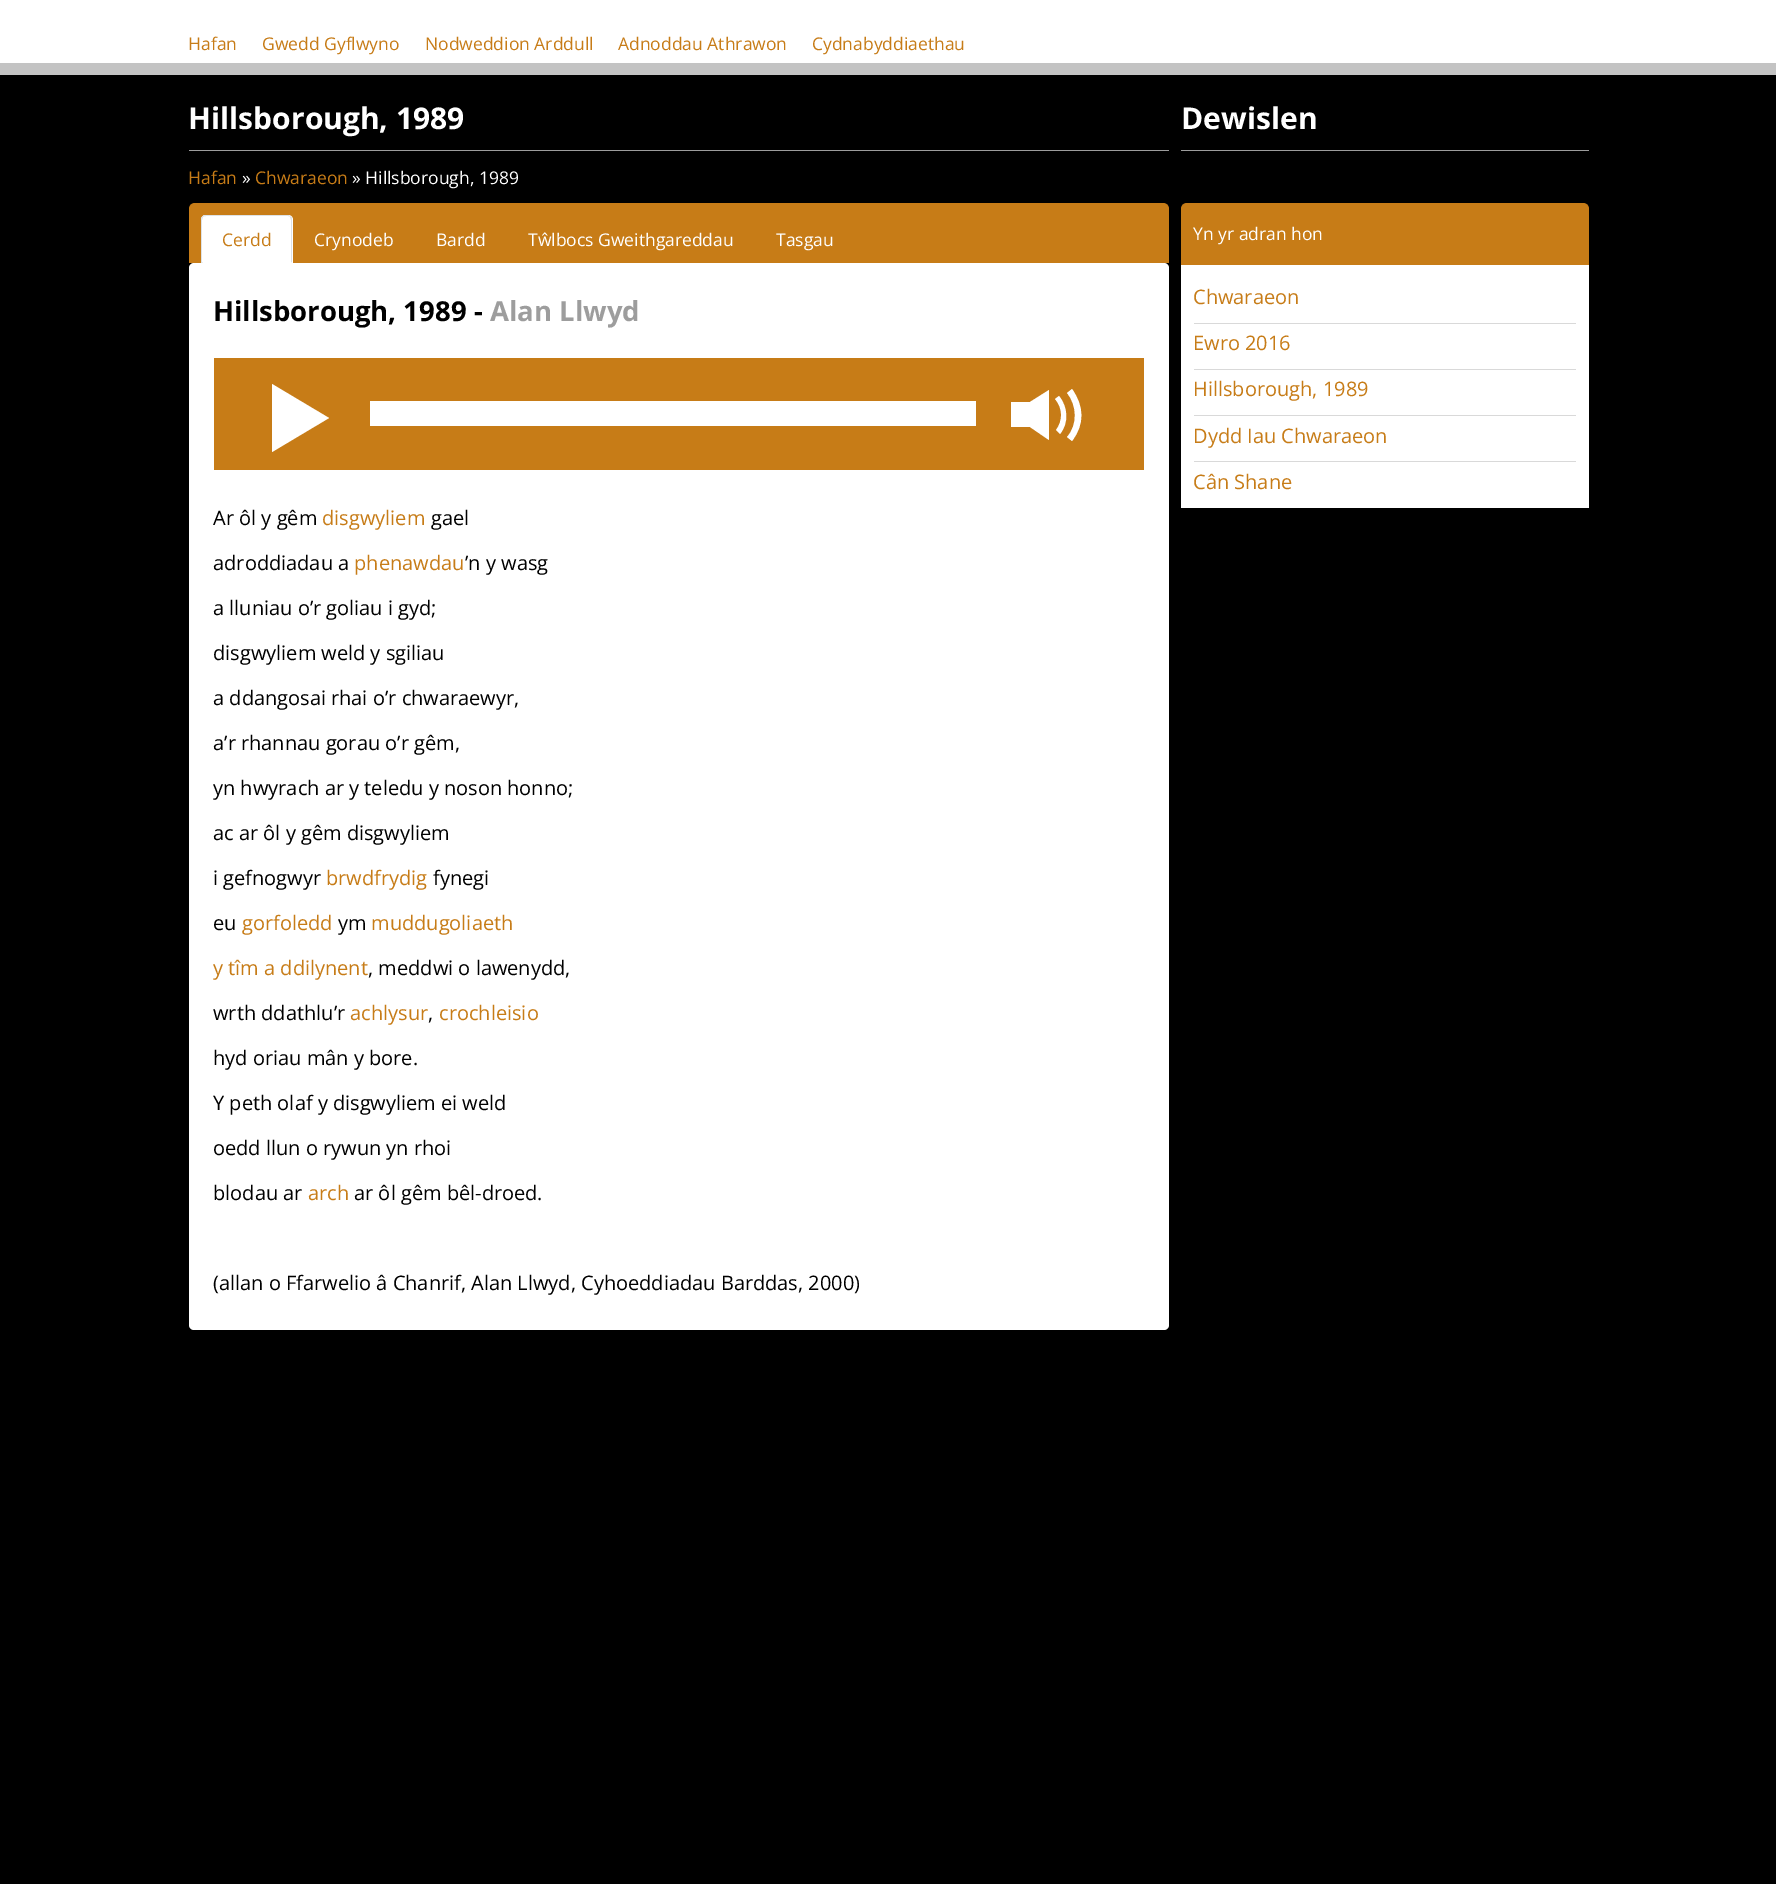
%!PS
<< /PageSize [1776 1884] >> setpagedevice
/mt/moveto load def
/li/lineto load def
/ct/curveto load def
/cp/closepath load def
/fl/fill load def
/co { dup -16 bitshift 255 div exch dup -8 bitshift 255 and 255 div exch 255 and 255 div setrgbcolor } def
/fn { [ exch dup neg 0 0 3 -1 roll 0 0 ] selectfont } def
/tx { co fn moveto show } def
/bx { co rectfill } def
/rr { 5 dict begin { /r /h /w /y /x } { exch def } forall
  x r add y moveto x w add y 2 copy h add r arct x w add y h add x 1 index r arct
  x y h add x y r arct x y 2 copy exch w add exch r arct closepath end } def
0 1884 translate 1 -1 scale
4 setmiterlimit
0 0 1776 1884 16#000000 bx
0 0 1776 63 16#FFFFFF bx
0 63 1776 12 16#C3C3C3 bx
189 150 980 1 16#9D9D9D bx
16#C77C17 co
195 203 mt 1163 203 li 1166.5 203 1169 205.5 1169 209 ct 1169 263 li 189 263 li 189 209 li 189 205.5 191.5 203 195 203 ct cp fl
16#FFFFFF co
206 215 mt 288 215 li 291 215 293 217 293 220 ct 293 263 li 201 263 li 201 220 li 201 217 203 215 206 215 ct cp fl
16#DEE2E6 co
206 215 mt 205 215 203 215 203 216 ct 203 217 li 204 216 205 216 206 216 ct 288 216 li 289 216 290 216 290 217 ct 291 217 li 290 216 289 215 288 215 ct cp fl
291 217 mt 292 217 292 219 292 220 ct 292 263 li 291 262 li 291 220 li 290 217 li cp fl
16#FFFFFF co
292 263 mt 202 263 li 203 262 li 291 262 li cp fl
16#DEE2E6 co
201 218 mt 203 216 li 203 217 li 203 218 202 219 202 220 ct 202 262 li 203 262 li 202 263 li 201 263 li cp fl
16#FFFFFF co
189 263 980 1067 5 rr fl
214 358 930 112 16#C77C17 bx
16#FFFFFF co
329 418 mt 272 384 li 272 452 li cp fl
370 401 606 25 16#FFFFFF bx
1072 441 mt 1085 424 1084 406 1072 389 ct 1067 393 li 1077 405 1078 425 1067 437 ct cp 1030 402 mt 1049 390 li 1049 440 li 1030 427 li 1011 427 li 1011 402 li cp 1055 399 mt 1059 396 li 1068 407 1069 423 1060 434 ct 1056 430 li 1063 421 1063 408 1055 399 ct cp fl
1181 150 408 1 16#9D9D9D bx
16#C77C17 co
1187 203 mt 1583 203 li 1586.5 203 1589 205.5 1589 209 ct 1589 265 li 1181 265 li 1181 209 li 1181 205.5 1183.5 203 1187 203 ct cp fl
1181 265 408 243 16#FFFFFF bx
1194 323 382 1 16#D9D9D9 bx
1194 369 382 1 16#D9D9D9 bx
1194 415 382 1 16#D9D9D9 bx
1194 461 382 1 16#D9D9D9 bx
(Hafan) 188 50 /OpenSans-Regular 17.5 16#C77C17 tx
(Gwedd Gyflwyno) 262 50 /OpenSans-Regular 17.5 16#C77C17 tx
(Nodweddion Arddull) 425 50 /OpenSans-Regular 17.5 16#C77C17 tx
(Adnoddau Athrawon) 618 50 /OpenSans-Regular 17.5 16#C77C17 tx
(Cydnabyddiaethau) 812 50 /OpenSans-Regular 17.5 16#C77C17 tx
(Hillsborough, 1989) 188 129 /OpenSans-Bold 30 16#FFFFFF tx
(Hafan) 188 184 /OpenSans-Regular 17.5 16#C77C17 tx
(») 242 184 /OpenSans-Regular 17.5 16#FFFFFF tx
(Chwaraeon) 255 184 /OpenSans-Regular 17.5 16#C77C17 tx
(» Hillsborough, 1989) 352 184 /OpenSans-Regular 17.5 16#FFFFFF tx
(Cerdd) 222 246 /OpenSans-Regular 17.5 16#C77C17 tx
(Crynodeb) 314 246 /OpenSans-Regular 17.5 16#FFFFFF tx
(Bardd) 436 246 /OpenSans-Regular 17.5 16#FFFFFF tx
(Tŵlbocs Gweithgareddau) 528 246 /OpenSans-Regular 17.5 16#FFFFFF tx
(Tasgau) 776 246 /OpenSans-Regular 17.5 16#FFFFFF tx
(Hillsborough, 1989 -) 213 321 /OpenSans-Bold 27.5 16#000000 tx
(Alan Llwyd) 490 321 /OpenSans-Bold 27.5 16#9D9D9D tx
(Ar ôl y gêm) 213 525 /OpenSans-Regular 20 16#000000 tx
(disgwyliem) 322 525 /OpenSans-Regular 20 16#C77C17 tx
(gael) 431 525 /OpenSans-Regular 20 16#000000 tx
(adroddiadau a) 213 570 /OpenSans-Regular 20 16#000000 tx
(phenawdau) 354 570 /OpenSans-Regular 20 16#C77C17 tx
(’n y wasg) 465 570 /OpenSans-Regular 20 16#000000 tx
(a lluniau o’r goliau i gyd;) 213 615 /OpenSans-Regular 20 16#000000 tx
(disgwyliem weld y sgiliau) 213 660 /OpenSans-Regular 20 16#000000 tx
(a ddangosai rhai o’r chwaraewyr,) 213 705 /OpenSans-Regular 20 16#000000 tx
(a’r rhannau gorau o’r gêm,) 213 750 /OpenSans-Regular 20 16#000000 tx
(yn hwyrach ar y teledu y noson honno;) 213 795 /OpenSans-Regular 20 16#000000 tx
(ac ar ôl y gêm disgwyliem) 213 840 /OpenSans-Regular 20 16#000000 tx
(i gefnogwyr) 213 885 /OpenSans-Regular 20 16#000000 tx
(brwdfrydig) 326 885 /OpenSans-Regular 20 16#C77C17 tx
(fynegi) 433 885 /OpenSans-Regular 20 16#000000 tx
(eu) 213 930 /OpenSans-Regular 20 16#000000 tx
(gorfoledd) 242 930 /OpenSans-Regular 20 16#C77C17 tx
(ym) 338 930 /OpenSans-Regular 20 16#000000 tx
(muddugoliaeth) 371 930 /OpenSans-Regular 20 16#C77C17 tx
(y tîm a ddilynent) 213 975 /OpenSans-Regular 20 16#C77C17 tx
(, meddwi o lawenydd,) 368 975 /OpenSans-Regular 20 16#000000 tx
(wrth ddathlu’r) 213 1020 /OpenSans-Regular 20 16#000000 tx
(achlysur) 350 1020 /OpenSans-Regular 20 16#C77C17 tx
(,) 428 1020 /OpenSans-Regular 20 16#000000 tx
(crochleisio) 439 1020 /OpenSans-Regular 20 16#C77C17 tx
(hyd oriau mân y bore.) 213 1065 /OpenSans-Regular 20 16#000000 tx
(Y peth olaf y disgwyliem ei weld) 213 1110 /OpenSans-Regular 20 16#000000 tx
(oedd llun o rywun yn rhoi) 213 1155 /OpenSans-Regular 20 16#000000 tx
(blodau ar) 213 1200 /OpenSans-Regular 20 16#000000 tx
(arch) 308 1200 /OpenSans-Regular 20 16#C77C17 tx
(ar ôl gêm bêl-droed.) 354 1200 /OpenSans-Regular 20 16#000000 tx
(\(allan o Ffarwelio â Chanrif, Alan Llwyd, Cyhoeddiadau Barddas, 2000\)) 213 1290 /OpenSans-Regular 20 16#000000 tx
(Dewislen) 1181 129 /OpenSans-Bold 30 16#FFFFFF tx
(Yn yr adran hon) 1193 240 /OpenSans-Regular 17.5 16#FFFFFF tx
(Chwaraeon) 1193 304 /OpenSans-Regular 20 16#C77C17 tx
(Ewro 2016) 1193 350 /OpenSans-Regular 20 16#C77C17 tx
(Hillsborough, 1989) 1193 396 /OpenSans-Regular 20 16#C77C17 tx
(Dydd Iau Chwaraeon) 1193 443 /OpenSans-Regular 20 16#C77C17 tx
(Cân Shane) 1193 489 /OpenSans-Regular 20 16#C77C17 tx
showpage
